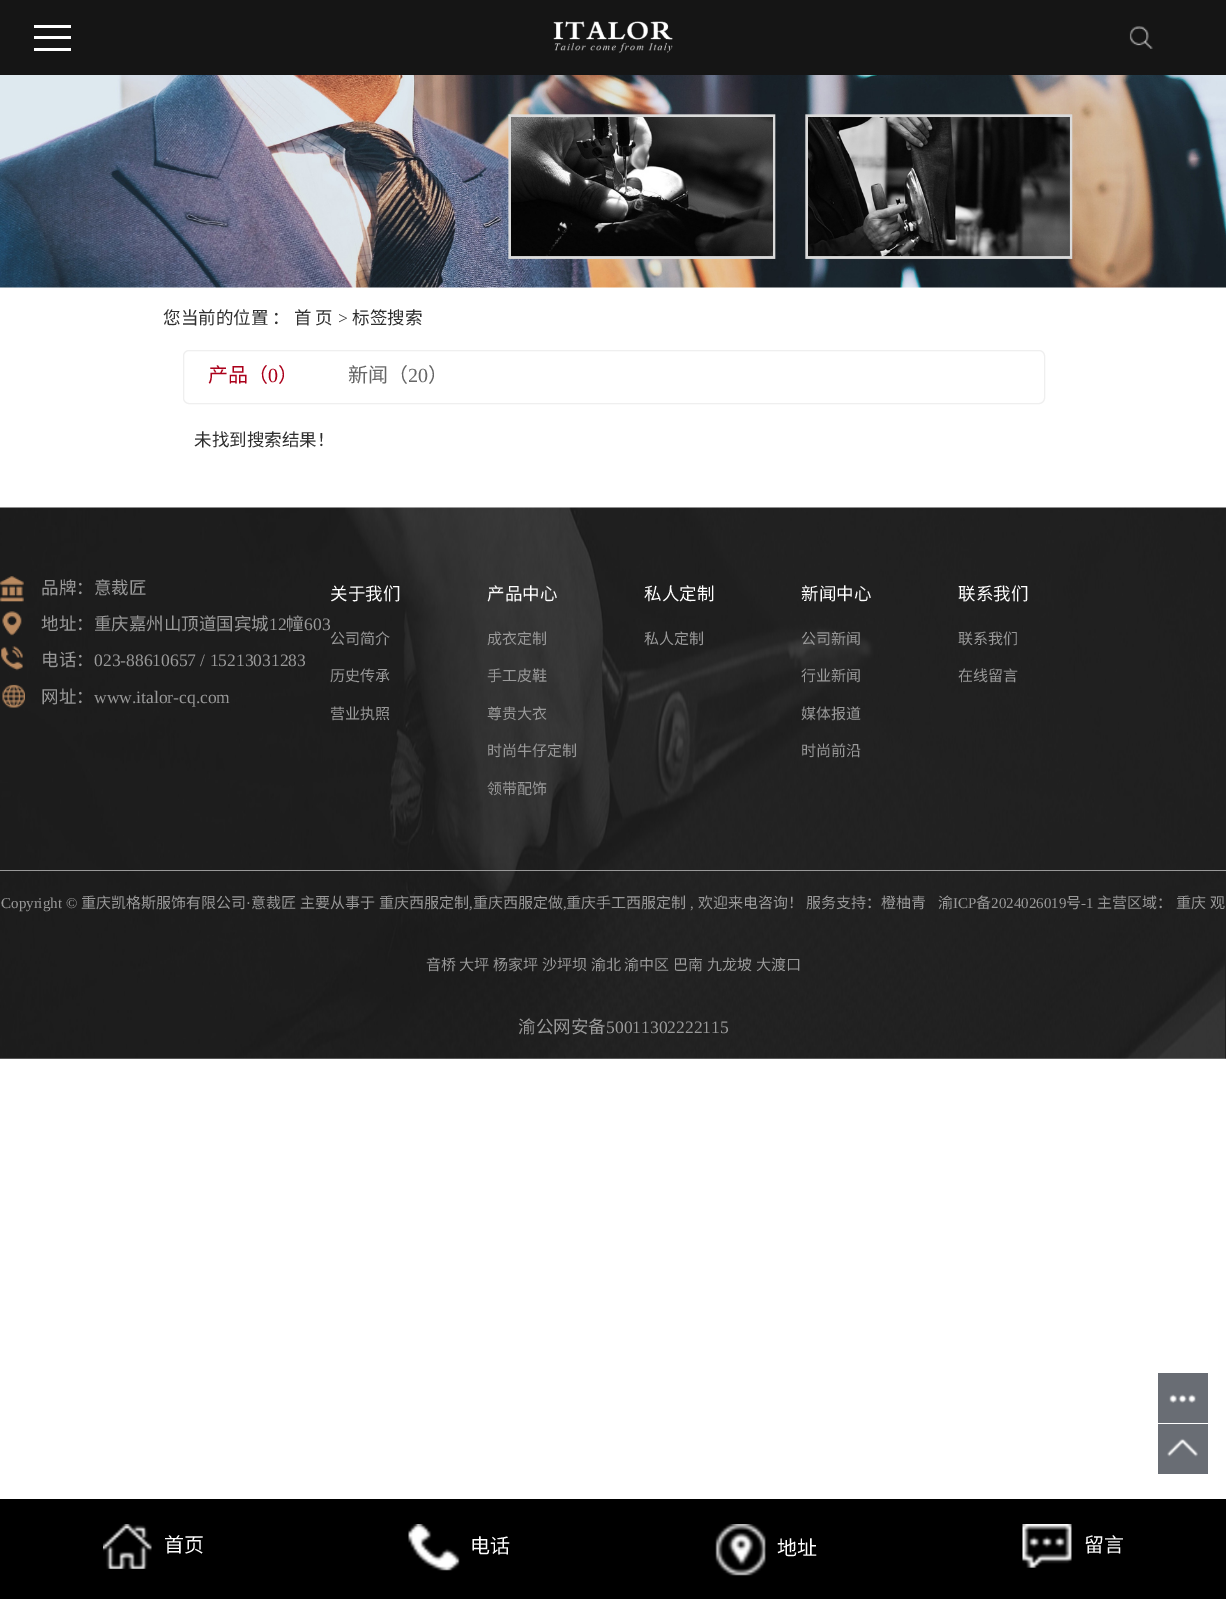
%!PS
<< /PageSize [1226 1599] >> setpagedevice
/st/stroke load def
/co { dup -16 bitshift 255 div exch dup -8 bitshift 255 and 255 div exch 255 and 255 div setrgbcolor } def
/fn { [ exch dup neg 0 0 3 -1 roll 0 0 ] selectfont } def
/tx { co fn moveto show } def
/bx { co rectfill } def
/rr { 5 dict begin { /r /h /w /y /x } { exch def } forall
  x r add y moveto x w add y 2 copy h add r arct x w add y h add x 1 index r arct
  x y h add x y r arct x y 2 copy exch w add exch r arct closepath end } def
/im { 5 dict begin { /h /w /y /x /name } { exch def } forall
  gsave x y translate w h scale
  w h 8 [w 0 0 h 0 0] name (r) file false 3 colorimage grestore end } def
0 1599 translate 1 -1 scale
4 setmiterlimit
0 0 1226 1599 16#FFFFFF bx
0 0 1226 75 16#151515 bx
34 25 37 3 16#FFFFFF bx
34 36 37 3 16#FFFFFF bx
34 48 37 3 16#FFFFFF bx
(media/1.raw) 553 21 120 32 im
(media/2.raw) 1129 26 24 23 im
(media/3.raw) 0 75 1226 213 im
16#EFEFEF co
183.5 350.5 861 53 5.5 rr st
1158 1373 50 50 16#696D74 bx
(media/4.raw) 1169 1394 27 9 im
1158 1424 50 50 16#696D74 bx
(media/5.raw) 1167 1438 31 19 im
(media/6.raw) 0 507 1226 552 im
(media/7.raw) 0 576 25 132 im
0 870 1226 1 16#999999 bx
0 1499 1226 100 16#000000 bx
(media/8.raw) 103 1524 49 45 im
(media/9.raw) 408 1524 52 47 im
(media/10.raw) 715 1524 51 52 im
(media/11.raw) 1022 1524 50 44 im
(您当前的位置 ：) 163 324 /NotoSansCJKSC-Regular 17.5 16#2F2F2F tx
(首 页) 294 324 /NotoSansCJKSC-Regular 17.5 16#2F2F2F tx
(>) 338 324 /LiberationSerif-Regular 17.5 16#2F2F2F tx
(标签搜索) 352 324 /NotoSansCJKSC-Regular 17.5 16#2F2F2F tx
(产品（) 208 382 /NotoSansCJKSC-Regular 20 16#AB001A tx
(0) 268 382 /LiberationSerif-Regular 20 16#AB001A tx
(）) 278 382 /NotoSansCJKSC-Regular 20 16#AB001A tx
(新闻（) 348 382 /NotoSansCJKSC-Regular 20 16#666666 tx
(20) 408 382 /LiberationSerif-Regular 20 16#666666 tx
(）) 428 382 /NotoSansCJKSC-Regular 20 16#666666 tx
(未找到搜索结果！) 194 446 /NotoSansCJKSC-Regular 17.5 16#2F2F2F tx
(品牌：意裁匠) 41 594 /NotoSansCJKSC-Regular 17.5 16#999999 tx
(地址：重庆嘉州山顶道国宾城) 41 630 /NotoSansCJKSC-Regular 17.5 16#999999 tx
(12) 269 630 /LiberationSerif-Regular 17.5 16#999999 tx
(幢) 286 630 /NotoSansCJKSC-Regular 17.5 16#999999 tx
(603) 304 630 /LiberationSerif-Regular 17.5 16#999999 tx
(电话：) 41 666 /NotoSansCJKSC-Regular 17.5 16#999999 tx
(023-88610657 / 15213031283) 94 666 /LiberationSerif-Regular 17.5 16#999999 tx
(网址：) 41 703 /NotoSansCJKSC-Regular 17.5 16#999999 tx
(www.italor-cq.com) 94 703 /LiberationSerif-Regular 17.5 16#999999 tx
(关于我们) 330 600 /NotoSansCJKSC-Regular 17.5 16#FFFFFF tx
(公司简介) 330 644 /NotoSansCJKSC-Regular 15 16#999999 tx
(历史传承) 330 681 /NotoSansCJKSC-Regular 15 16#999999 tx
(营业执照) 330 719 /NotoSansCJKSC-Regular 15 16#999999 tx
(产品中心) 487 600 /NotoSansCJKSC-Regular 17.5 16#FFFFFF tx
(成衣定制) 487 644 /NotoSansCJKSC-Regular 15 16#999999 tx
(手工皮鞋) 487 681 /NotoSansCJKSC-Regular 15 16#999999 tx
(尊贵大衣) 487 719 /NotoSansCJKSC-Regular 15 16#999999 tx
(时尚牛仔定制) 487 756 /NotoSansCJKSC-Regular 15 16#999999 tx
(领带配饰) 487 794 /NotoSansCJKSC-Regular 15 16#999999 tx
(私人定制) 644 600 /NotoSansCJKSC-Regular 17.5 16#FFFFFF tx
(私人定制) 644 644 /NotoSansCJKSC-Regular 15 16#999999 tx
(新闻中心) 801 600 /NotoSansCJKSC-Regular 17.5 16#FFFFFF tx
(公司新闻) 801 644 /NotoSansCJKSC-Regular 15 16#999999 tx
(行业新闻) 801 681 /NotoSansCJKSC-Regular 15 16#999999 tx
(媒体报道) 801 719 /NotoSansCJKSC-Regular 15 16#999999 tx
(时尚前沿) 801 756 /NotoSansCJKSC-Regular 15 16#999999 tx
(联系我们) 958 600 /NotoSansCJKSC-Regular 17.5 16#FFFFFF tx
(联系我们) 958 644 /NotoSansCJKSC-Regular 15 16#999999 tx
(在线留言) 958 681 /NotoSansCJKSC-Regular 15 16#999999 tx
(Copyright ©) 1 908 /LiberationSerif-Regular 15 16#999999 tx
(重庆凯格斯服饰有限公司) 81 908 /NotoSansCJKSC-Regular 15 16#999999 tx
(·) 246 908 /LiberationSerif-Regular 15 16#999999 tx
(意裁匠) 251 908 /NotoSansCJKSC-Regular 15 16#999999 tx
(主要从事于) 300 908 /NotoSansCJKSC-Regular 15 16#999999 tx
(重庆西服定制) 379 908 /NotoSansCJKSC-Regular 15 16#999999 tx
(重庆西服定做) 473 908 /NotoSansCJKSC-Regular 15 16#999999 tx
(重庆手工西服定制) 566 908 /NotoSansCJKSC-Regular 15 16#999999 tx
(欢迎来电咨询！) 698 908 /NotoSansCJKSC-Regular 15 16#999999 tx
(服务支持：橙柚青) 806 908 /NotoSansCJKSC-Regular 15 16#999999 tx
(渝) 938 908 /NotoSansCJKSC-Regular 15 16#999999 tx
(ICP) 953 908 /LiberationSerif-Regular 15 16#999999 tx
(备) 976 908 /NotoSansCJKSC-Regular 15 16#999999 tx
(2024026019) 991 908 /LiberationSerif-Regular 15 16#999999 tx
(号) 1066 908 /NotoSansCJKSC-Regular 15 16#999999 tx
(-1) 1081 908 /LiberationSerif-Regular 15 16#999999 tx
(主营区域：) 1097 908 /NotoSansCJKSC-Regular 15 16#999999 tx
(重庆) 1176 908 /NotoSansCJKSC-Regular 15 16#999999 tx
(观) 1210 908 /NotoSansCJKSC-Regular 15 16#999999 tx
(,) 469 908 /LiberationSerif-Regular 15 16#999999 tx
(,) 563 908 /LiberationSerif-Regular 15 16#999999 tx
(,) 690 908 /LiberationSerif-Regular 15 16#999999 tx
(音桥) 426 970 /NotoSansCJKSC-Regular 15 16#999999 tx
(大坪) 459 970 /NotoSansCJKSC-Regular 15 16#999999 tx
(杨家坪) 493 970 /NotoSansCJKSC-Regular 15 16#999999 tx
(沙坪坝) 542 970 /NotoSansCJKSC-Regular 15 16#999999 tx
(渝北) 591 970 /NotoSansCJKSC-Regular 15 16#999999 tx
(渝中区) 624 970 /NotoSansCJKSC-Regular 15 16#999999 tx
(巴南) 673 970 /NotoSansCJKSC-Regular 15 16#999999 tx
(九龙坡) 707 970 /NotoSansCJKSC-Regular 15 16#999999 tx
(大渡口) 756 970 /NotoSansCJKSC-Regular 15 16#999999 tx
(渝公网安备) 518 1033 /NotoSansCJKSC-Regular 17.5 16#999999 tx
(50011302222115) 606 1033 /LiberationSerif-Regular 17.5 16#999999 tx
(首页) 164 1552 /NotoSansCJKSC-Regular 20 16#FFFFFF tx
(电话) 470 1553 /NotoSansCJKSC-Regular 20 16#FFFFFF tx
(地址) 777 1555 /NotoSansCJKSC-Regular 20 16#FFFFFF tx
(留言) 1084 1552 /NotoSansCJKSC-Regular 20 16#FFFFFF tx
showpage
